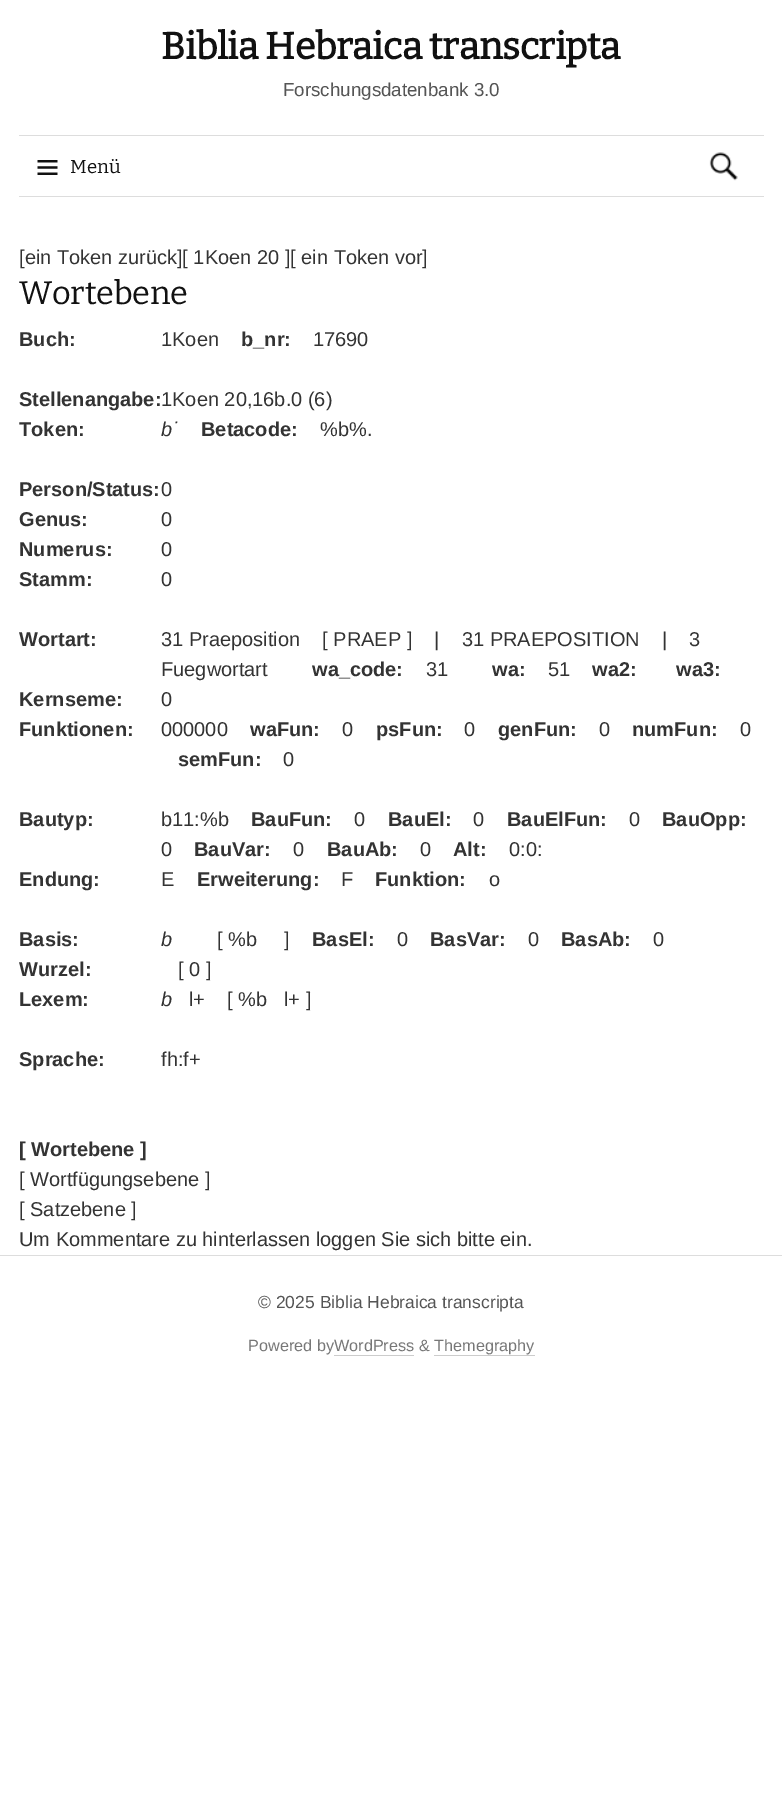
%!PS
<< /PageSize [782 1795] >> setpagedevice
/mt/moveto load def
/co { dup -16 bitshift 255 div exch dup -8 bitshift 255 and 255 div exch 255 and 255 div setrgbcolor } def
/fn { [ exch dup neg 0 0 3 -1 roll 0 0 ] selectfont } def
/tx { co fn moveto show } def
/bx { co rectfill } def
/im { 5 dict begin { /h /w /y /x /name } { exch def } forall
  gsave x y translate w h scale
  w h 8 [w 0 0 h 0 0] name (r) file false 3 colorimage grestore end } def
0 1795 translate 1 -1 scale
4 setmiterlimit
0 0 782 1795 16#FFFFFF bx
19 196 745 1 16#DDDDDD bx
19 135 745 1 16#DDDDDD bx
(media/1.raw) 37 160 21 15 im
(media/2.raw) 709 152 29 29 im
0 1255 782 1 16#DDDDDD bx
334 1355 80 1 16#CCCCCC bx
434 1355 101 1 16#CCCCCC bx
/Bitter-Bold 37.5 fn
16#111111 co
161 59 mt -.4 0 (Biblia Hebraica transcripta) ashow
(Forschungsdatenbank 3.0) 283 96 /LiberationSans-Regular 18.75 16#555555 tx
(Menü) 70 173 /Bitter-Thin 18.75 16#111111 tx
([ein Token zurück][ 1Koen 20 ][ ein Token vor]) 19 264 /LiberationSans-Regular 20 16#333333 tx
/Bitter-Thin 32.5 fn
16#111111 co
19 304 mt -.25 0 (Wortebene) ashow
(Buch:) 19 346 /LiberationSans-Bold 20 16#333333 tx
(1Koen) 161 346 /LiberationSans-Regular 20 16#333333 tx
(b_nr:) 241 346 /LiberationSans-Bold 20 16#333333 tx
(17690) 313 346 /LiberationSans-Regular 20 16#333333 tx
(Stellenangabe:) 19 406 /LiberationSans-Bold 20 16#333333 tx
(1Koen 20,16b.0 \(6\)) 161 406 /LiberationSans-Regular 20 16#333333 tx
(Token:) 19 436 /LiberationSans-Bold 20 16#333333 tx
(b˙) 161 436 /LiberationSans-Italic 20 16#333333 tx
(Betacode:) 201 436 /LiberationSans-Bold 20 16#333333 tx
(%b%.) 320 436 /LiberationSans-Regular 20 16#333333 tx
(Person/Status:) 19 496 /LiberationSans-Bold 20 16#333333 tx
(0) 161 496 /LiberationSans-Regular 20 16#333333 tx
(Genus:) 19 526 /LiberationSans-Bold 20 16#333333 tx
(0) 161 526 /LiberationSans-Regular 20 16#333333 tx
(Numerus:) 19 556 /LiberationSans-Bold 20 16#333333 tx
(0) 161 556 /LiberationSans-Regular 20 16#333333 tx
(Stamm:) 19 586 /LiberationSans-Bold 20 16#333333 tx
(0) 161 586 /LiberationSans-Regular 20 16#333333 tx
(Wortart:) 19 646 /LiberationSans-Bold 20 16#333333 tx
(31 Praeposition    [ PRAEP ]    |    31 PRAEPOSITION    |    3) 161 646 /LiberationSans-Regular 20 16#333333 tx
(Fuegwortart) 161 676 /LiberationSans-Regular 20 16#333333 tx
(wa_code:) 312 676 /LiberationSans-Bold 20 16#333333 tx
(31) 426 676 /LiberationSans-Regular 20 16#333333 tx
(wa:) 492 676 /LiberationSans-Bold 20 16#333333 tx
(51) 548 676 /LiberationSans-Regular 20 16#333333 tx
(wa2:) 592 676 /LiberationSans-Bold 20 16#333333 tx
(wa3:) 676 676 /LiberationSans-Bold 20 16#333333 tx
(Kernseme:) 19 706 /LiberationSans-Bold 20 16#333333 tx
(0) 161 706 /LiberationSans-Regular 20 16#333333 tx
(Funktionen:) 19 736 /LiberationSans-Bold 20 16#333333 tx
(000000) 161 736 /LiberationSans-Regular 20 16#333333 tx
(waFun:) 250 736 /LiberationSans-Bold 20 16#333333 tx
(0) 342 736 /LiberationSans-Regular 20 16#333333 tx
(psFun:) 376 736 /LiberationSans-Bold 20 16#333333 tx
(0) 464 736 /LiberationSans-Regular 20 16#333333 tx
(genFun:) 498 736 /LiberationSans-Bold 20 16#333333 tx
(0) 599 736 /LiberationSans-Regular 20 16#333333 tx
(numFun:) 632 736 /LiberationSans-Bold 20 16#333333 tx
(0) 740 736 /LiberationSans-Regular 20 16#333333 tx
(semFun:) 178 766 /LiberationSans-Bold 20 16#333333 tx
(0) 283 766 /LiberationSans-Regular 20 16#333333 tx
(Bautyp:) 19 826 /LiberationSans-Bold 20 16#333333 tx
(b11:%b) 161 826 /LiberationSans-Regular 20 16#333333 tx
(BauFun:) 251 826 /LiberationSans-Bold 20 16#333333 tx
(0) 354 826 /LiberationSans-Regular 20 16#333333 tx
(BauEl:) 388 826 /LiberationSans-Bold 20 16#333333 tx
(0) 473 826 /LiberationSans-Regular 20 16#333333 tx
(BauElFun:) 507 826 /LiberationSans-Bold 20 16#333333 tx
(0) 629 826 /LiberationSans-Regular 20 16#333333 tx
(BauOpp:) 662 826 /LiberationSans-Bold 20 16#333333 tx
(0) 161 856 /LiberationSans-Regular 20 16#333333 tx
(BauVar:) 194 856 /LiberationSans-Bold 20 16#333333 tx
(0) 293 856 /LiberationSans-Regular 20 16#333333 tx
(BauAb:) 327 856 /LiberationSans-Bold 20 16#333333 tx
(0) 420 856 /LiberationSans-Regular 20 16#333333 tx
(Alt:) 453 856 /LiberationSans-Bold 20 16#333333 tx
(0:0:) 509 856 /LiberationSans-Regular 20 16#333333 tx
(Endung:) 19 886 /LiberationSans-Bold 20 16#333333 tx
(E) 161 886 /LiberationSans-Regular 20 16#333333 tx
(Erweiterung:) 197 886 /LiberationSans-Bold 20 16#333333 tx
(F) 341 886 /LiberationSans-Regular 20 16#333333 tx
(Funktion:) 375 886 /LiberationSans-Bold 20 16#333333 tx
(o) 489 886 /LiberationSans-Regular 20 16#333333 tx
(Basis:) 19 946 /LiberationSans-Bold 20 16#333333 tx
(b) 161 946 /LiberationSans-Italic 20 16#333333 tx
([ %b) 217 946 /LiberationSans-Regular 20 16#333333 tx
(]) 284 946 /LiberationSans-Regular 20 16#333333 tx
(BasEl:) 312 946 /LiberationSans-Bold 20 16#333333 tx
(0) 397 946 /LiberationSans-Regular 20 16#333333 tx
(BasVar:) 430 946 /LiberationSans-Bold 20 16#333333 tx
(0) 528 946 /LiberationSans-Regular 20 16#333333 tx
(BasAb:) 561 946 /LiberationSans-Bold 20 16#333333 tx
(0) 653 946 /LiberationSans-Regular 20 16#333333 tx
(Wurzel:) 19 976 /LiberationSans-Bold 20 16#333333 tx
([ 0 ]) 178 976 /LiberationSans-Regular 20 16#333333 tx
(Lexem:) 19 1006 /LiberationSans-Bold 20 16#333333 tx
(b) 161 1006 /LiberationSans-Italic 20 16#333333 tx
(l+    [ %b   l+ ]) 189 1006 /LiberationSans-Regular 20 16#333333 tx
(Sprache:) 19 1066 /LiberationSans-Bold 20 16#333333 tx
(fh:f+) 161 1066 /LiberationSans-Regular 20 16#333333 tx
([ Wortebene ]) 19 1156 /LiberationSans-Bold 20 16#333333 tx
([ Wortfügungsebene ]) 19 1186 /LiberationSans-Regular 20 16#333333 tx
([ Satzebene ]) 19 1216 /LiberationSans-Regular 20 16#333333 tx
(Um Kommentare zu hinterlassen loggen Sie sich bitte ein.) 19 1246 /LiberationSans-Regular 20 16#333333 tx
(© 2025 Biblia Hebraica transcripta) 258 1308 /LiberationSans-Regular 17.5 16#555555 tx
(Powered byWordPress & Themegraphy) 248 1351 /LiberationSans-Regular 16.25 16#777777 tx
showpage
